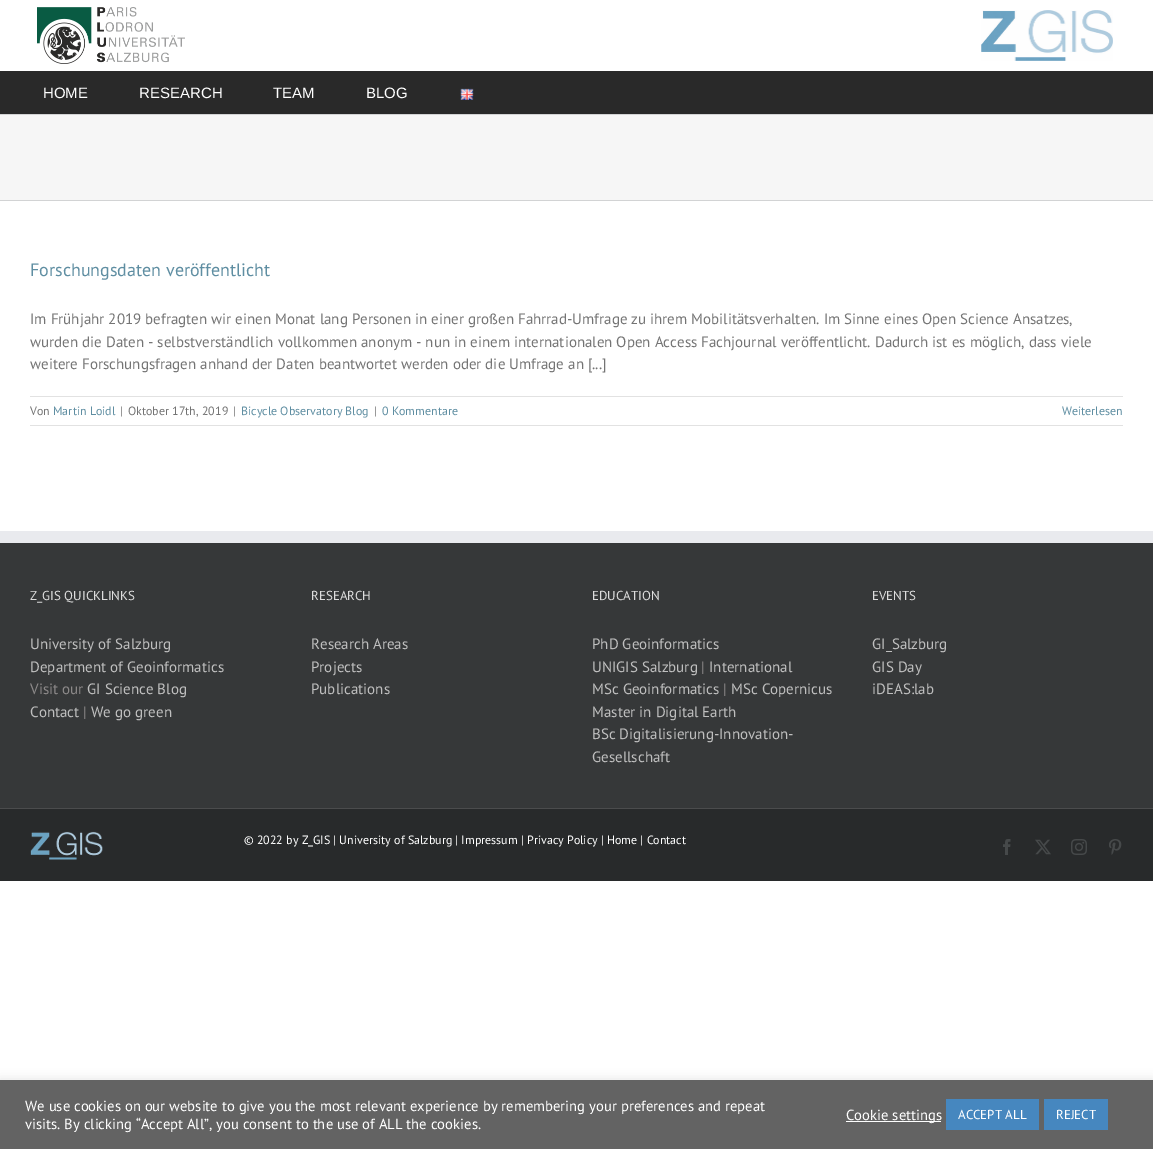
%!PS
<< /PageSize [1153 1149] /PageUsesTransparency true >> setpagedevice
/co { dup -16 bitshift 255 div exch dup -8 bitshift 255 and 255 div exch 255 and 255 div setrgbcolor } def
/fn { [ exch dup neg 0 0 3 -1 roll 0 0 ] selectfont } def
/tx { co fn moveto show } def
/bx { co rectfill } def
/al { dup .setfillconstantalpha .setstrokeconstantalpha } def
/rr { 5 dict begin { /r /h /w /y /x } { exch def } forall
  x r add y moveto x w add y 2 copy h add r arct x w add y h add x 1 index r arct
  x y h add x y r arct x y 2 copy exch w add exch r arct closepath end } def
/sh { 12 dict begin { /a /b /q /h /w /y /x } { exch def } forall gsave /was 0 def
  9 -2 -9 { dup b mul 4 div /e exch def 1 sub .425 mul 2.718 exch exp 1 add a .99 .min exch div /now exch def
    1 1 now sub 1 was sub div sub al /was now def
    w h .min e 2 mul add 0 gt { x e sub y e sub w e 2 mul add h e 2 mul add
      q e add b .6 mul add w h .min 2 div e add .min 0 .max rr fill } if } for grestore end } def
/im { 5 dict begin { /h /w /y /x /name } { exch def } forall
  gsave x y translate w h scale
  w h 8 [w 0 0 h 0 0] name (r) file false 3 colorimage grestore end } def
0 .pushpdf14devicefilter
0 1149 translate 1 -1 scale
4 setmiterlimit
0 0 1153 1149 16#FFFFFF bx
(media/1.raw) 37 7 148 57 im
(media/2.raw) 981 10 132 51 im
0 71 1153 43 16#292929 bx
(media/3.raw) 460 88 14 12 im
0 115 1153 85 16#F6F6F6 bx
0 114 1153 1 16#D2D3D4 bx
0 200 1153 1 16#D2D3D4 bx
30 396 1093 1 16#E2E2E2 bx
30 425 1093 1 16#E2E2E2 bx
0 543 1153 265 16#363839 bx
0 531 1153 12 16#E9EAEE bx
0 809 1153 72 16#282A2B bx
0 808 1153 1 16#4B4C4D bx
(media/4.raw) 30 831 73 29 im
(media/5.raw) 1003 839 8 16 im
(media/6.raw) 1035 839 16 16 im
(media/7.raw) 1071 839 16 16 im
(media/8.raw) 1109 839 13 16 im
16#ACABAB co
0 1079 1153 69 0 5 .3 sh
0 1080 1153 69 16#636363 bx
846 1121 95 1 16#FFFFFF bx
946 1099 93 31 16#4687BF bx
1044 1099 64 31 16#4687BF bx
(HOME) 43 98 /LiberationSans-Regular 15 16#FFFFFF tx
(RESEARCH) 139 98 /LiberationSans-Regular 15 16#FFFFFF tx
(TEAM) 273 98 /LiberationSans-Regular 15 16#FFFFFF tx
(BLOG) 366 98 /LiberationSans-Regular 15 16#FFFFFF tx
(Forschungsdaten veröffentlicht) 30 276 /PTSans-Regular 18 16#5F8EA2 tx
(Im Frühjahr 2019 befragten wir einen Monat lang Personen in einer großen Fahrrad-Umfrage zu ihrem Mobilitätsverhalten. Im Sinne eines Open Science Ansatzes,) 30 324 /PTSans-Regular 15 16#747474 tx
(wurden die Daten - selbstverständlich vollkommen anonym - nun in einem internationalen Open Access Fachjournal veröffentlicht. Dadurch ist es möglich, dass viele) 30 347 /PTSans-Regular 15 16#747474 tx
(weitere Forschungsfragen anhand der Daten beantwortet werden oder die Umfrage an [...]) 30 369 /PTSans-Regular 15 16#747474 tx
(Von) 30 415 /PTSans-Regular 12 16#747474 tx
(Martin Loidl) 53 415 /PTSans-Regular 12 16#5F8EA2 tx
(|) 120 415 /PTSans-Regular 12 16#747474 tx
(Oktober 17th, 2019) 128 415 /PTSans-Regular 12 16#747474 tx
(|) 233 415 /PTSans-Regular 12 16#747474 tx
(Bicycle Observatory Blog) 241 415 /PTSans-Regular 12 16#5F8EA2 tx
(|) 374 415 /PTSans-Regular 12 16#747474 tx
(0 Kommentare) 382 415 /PTSans-Regular 12 16#5F8EA2 tx
(Weiterlesen) 1062 415 /PTSans-Regular 12 16#5F8EA2 tx
(Z_GIS QUICKLINKS) 30 600 /PTSans-Regular 13 16#DDDDDD tx
(University of Salzburg) 30 649 /PTSans-Regular 15 16#BFBFBF tx
(Department of Geoinformatics) 30 672 /PTSans-Regular 15 16#BFBFBF tx
(Visit our) 30 694 /PTSans-Regular 15 16#8C8989 tx
(GI Science Blog) 87 694 /PTSans-Regular 15 16#BFBFBF tx
(Contact) 30 717 /PTSans-Regular 15 16#BFBFBF tx
(|) 83 717 /PTSans-Regular 15 16#8C8989 tx
(We go green) 91 717 /PTSans-Regular 15 16#BFBFBF tx
(RESEARCH) 311 600 /PTSans-Regular 13 16#DDDDDD tx
(Research Areas) 311 649 /PTSans-Regular 15 16#BFBFBF tx
(Projects) 311 672 /PTSans-Regular 15 16#BFBFBF tx
(Publications) 311 694 /PTSans-Regular 15 16#BFBFBF tx
(EDUCATION) 592 600 /PTSans-Regular 13 16#DDDDDD tx
(PhD Geoinformatics) 592 649 /PTSans-Regular 15 16#BFBFBF tx
(UNIGIS Salzburg) 592 672 /PTSans-Regular 15 16#BFBFBF tx
(|) 701 672 /PTSans-Regular 15 16#8C8989 tx
(International) 709 672 /PTSans-Regular 15 16#BFBFBF tx
(MSc Geoinformatics) 592 694 /PTSans-Regular 15 16#BFBFBF tx
(|) 723 694 /PTSans-Regular 15 16#8C8989 tx
(MSc Copernicus) 731 694 /PTSans-Regular 15 16#BFBFBF tx
(Master in Digital Earth) 592 717 /PTSans-Regular 15 16#BFBFBF tx
(BSc Digitalisierung-Innovation-) 592 739 /PTSans-Regular 15 16#BFBFBF tx
(Gesellschaft) 592 762 /PTSans-Regular 15 16#BFBFBF tx
(EVENTS) 872 600 /PTSans-Regular 13 16#DDDDDD tx
(GI_Salzburg) 872 649 /PTSans-Regular 15 16#BFBFBF tx
(GIS Day) 872 672 /PTSans-Regular 15 16#BFBFBF tx
(iDEAS:lab) 872 694 /PTSans-Regular 15 16#BFBFBF tx
(© 2022 by Z_GIS | University of Salzburg | Impressum | Privacy Policy | Home | Contact) 244 844 /PTSans-Regular 12 16#FFFFFF tx
(We use cookies on our website to give you the most relevant experience by remembering your preferences and repeat) 25 1111 /PTSans-Regular 14.67 16#FFFFFF tx
(visits. By clicking “Accept All”, you consent to the use of ALL the cookies.) 25 1129 /PTSans-Regular 14.67 16#FFFFFF tx
(Cookie settings) 846 1120 /PTSans-Regular 14.67 16#FFFFFF tx
(ACCEPT ALL) 958 1119 /PTSans-Regular 13 16#FFFFFF tx
(REJECT) 1056 1119 /PTSans-Regular 13 16#FFFFFF tx
.poppdf14devicefilter showpage
